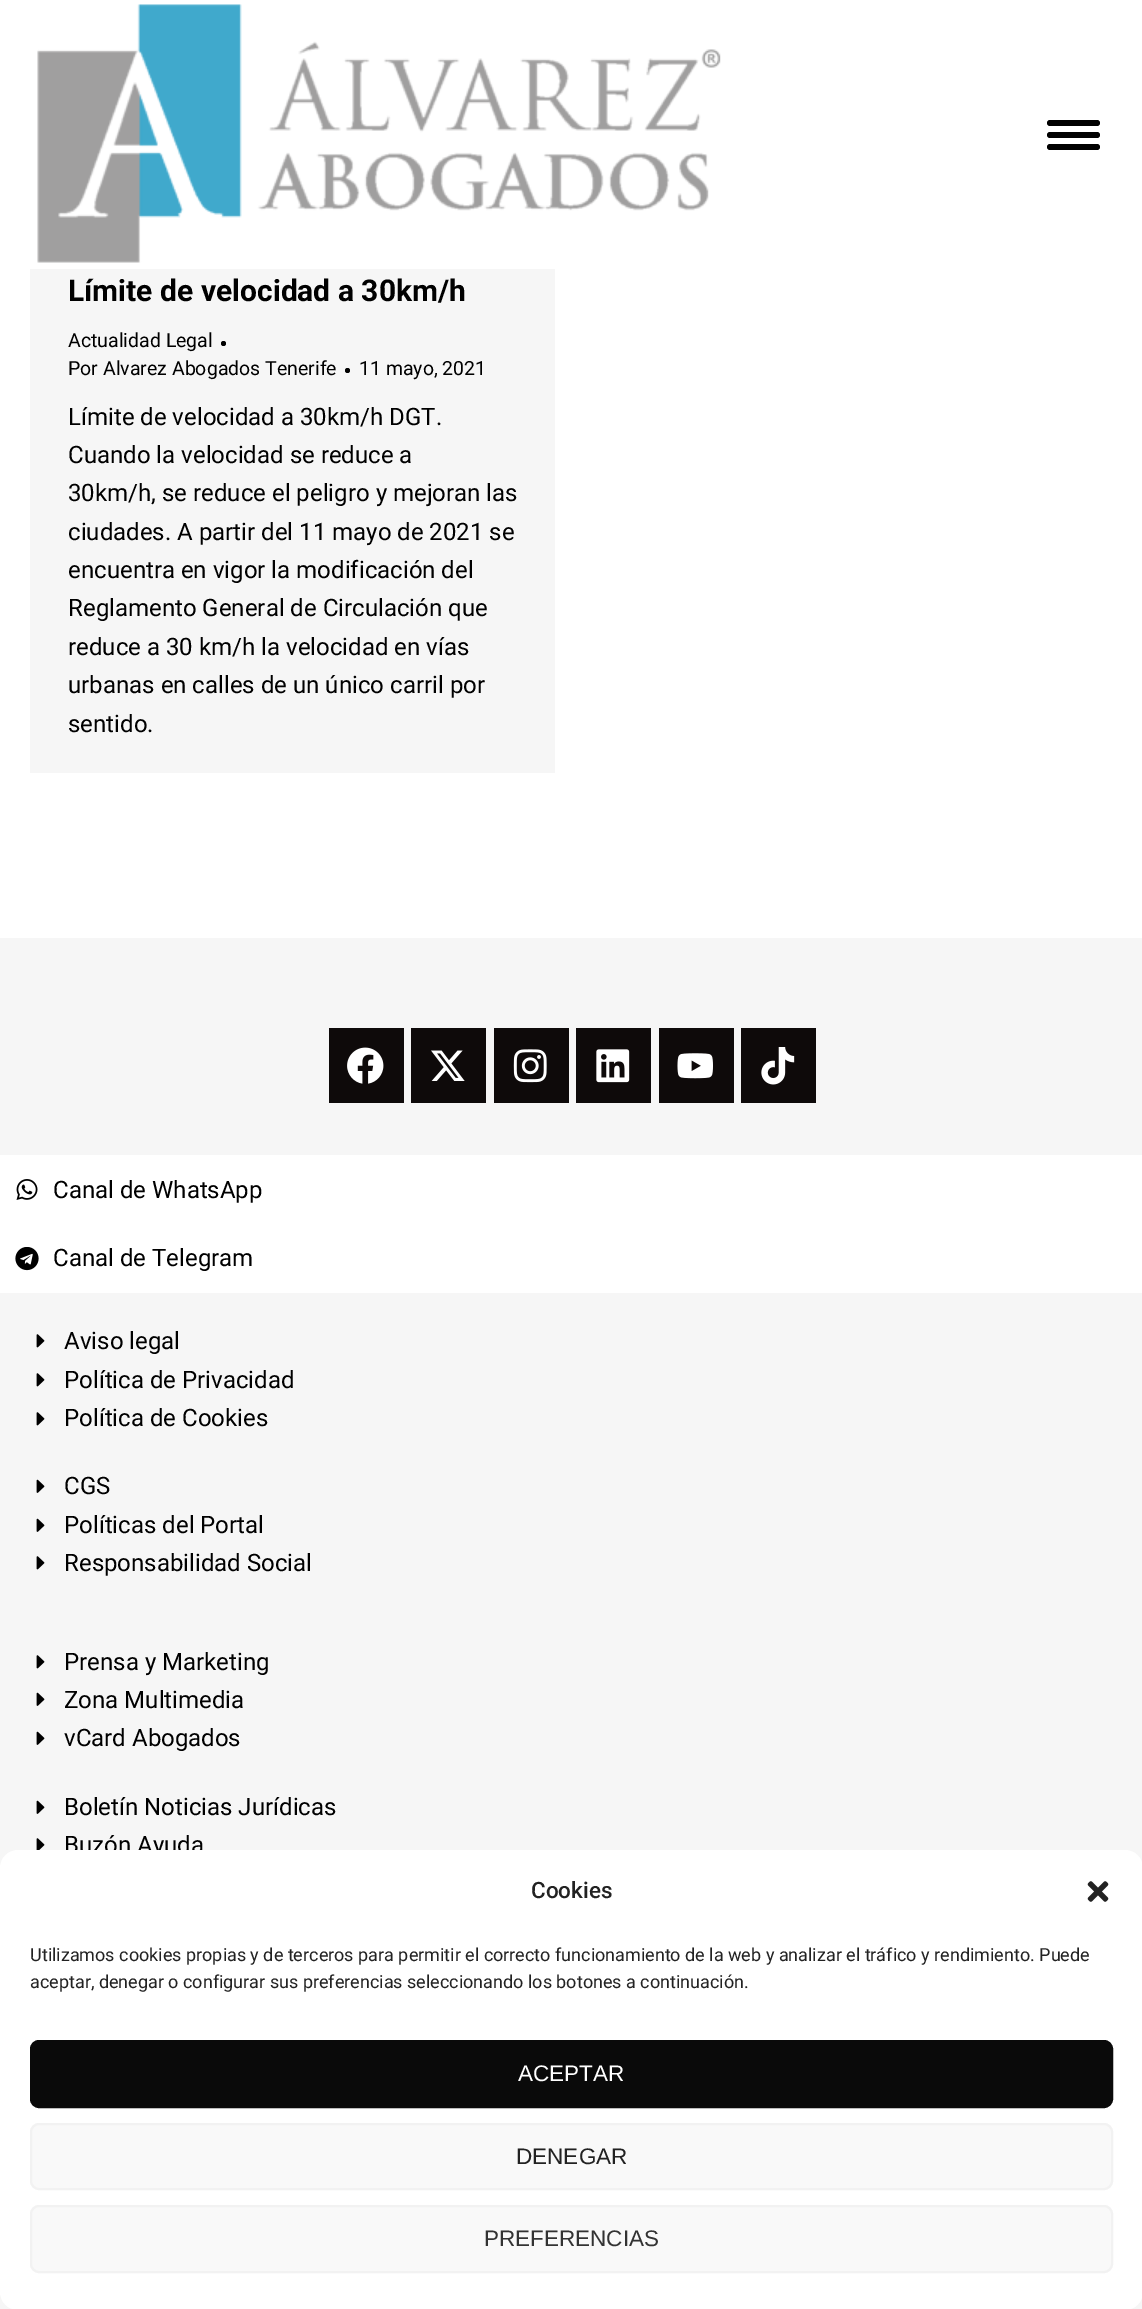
%!PS
<< /PageSize [1142 2309] >> setpagedevice
/fl/fill load def
/st/stroke load def
/gs/gsave load def
/gr/grestore load def
/lw/setlinewidth load def
/co { dup -16 bitshift 255 div exch dup -8 bitshift 255 and 255 div exch 255 and 255 div setrgbcolor } def
/fn { [ exch dup neg 0 0 3 -1 roll 0 0 ] selectfont } def
/tx { co fn moveto show } def
/bx { co rectfill } def
/ci { newpath 0 360 arc closepath } def
/rr { 5 dict begin { /r /h /w /y /x } { exch def } forall
  x r add y moveto x w add y 2 copy h add r arct x w add y h add x 1 index r arct
  x y h add x y r arct x y 2 copy exch w add exch r arct closepath end } def
/im { 5 dict begin { /h /w /y /x /name } { exch def } forall
  gsave x y translate w h scale
  w h 8 [w 0 0 h 0 0] name (r) file false 3 colorimage grestore end } def
0 2309 translate 1 -1 scale
4 setmiterlimit
0 0 1142 2309 16#FFFFFF bx
(media/1.raw) 37 4 684 259 im
16#000000 co
1047 120 53 6 3 rr fl
1047 132 53 6 3 rr fl
1047 144 53 6 3 rr fl
30 269 525 504 16#F6F6F6 bx
16#000000 co
223.5 343.5 2.5 ci fl
347.5 370.5 2.5 ci fl
0 938 1142 217 16#F6F6F6 bx
329 1028 75 75 16#0E0A0A bx
(media/2.raw) 347 1047 37 37 im
411 1028 75 75 16#0E0A0A bx
(media/3.raw) 431 1050 34 31 im
494 1028 75 75 16#0E0A0A bx
(media/4.raw) 513 1049 34 34 im
576 1028 75 75 16#0E0A0A bx
(media/5.raw) 596 1049 34 34 im
659 1028 75 75 16#0E0A0A bx
(media/6.raw) 677 1053 36 26 im
741 1028 75 75 16#0E0A0A bx
(media/7.raw) 761 1047 34 38 im
(media/8.raw) 16 1179 22 21 im
(media/9.raw) 15 1247 24 24 im
0 1293 1142 575 16#F6F6F6 bx
(media/10.raw) 36 1334 9 14 im
(media/10.raw) 36 1373 9 14 im
(media/10.raw) 36 1412 9 14 im
(media/11.raw) 36 1479 9 14 im
(media/11.raw) 36 1518 9 14 im
(media/10.raw) 36 1556 9 14 im
(media/10.raw) 36 1655 9 14 im
(media/11.raw) 36 1692 9 14 im
(media/11.raw) 36 1731 9 14 im
(media/11.raw) 36 1800 9 14 im
(media/12.raw) 36 1838 9 12 im
0 2292 1142 17 16#F6F6F6 bx
(Límite de velocidad a 30km/h) 68 301 /Roboto-Bold 30 16#000000 tx
(Actualidad Legal) 68 347 /Roboto-Regular 19.5 16#000000 tx
(Por Alvarez Abogados Tenerife) 68 375 /Roboto-Regular 19.5 16#000000 tx
(11 mayo, 2021) 359 375 /Roboto-Regular 19.5 16#000000 tx
(Límite de velocidad a 30km/h DGT.) 68 425 /Roboto-Regular 24 16#000000 tx
(Cuando la velocidad se reduce a) 68 463 /Roboto-Regular 24 16#000000 tx
(30km/h, se reduce el peligro y mejoran las) 68 501 /Roboto-Regular 24 16#000000 tx
(ciudades. A partir del 11 mayo de 2021 se) 68 540 /Roboto-Regular 24 16#000000 tx
(encuentra en vigor la modificación del) 68 578 /Roboto-Regular 24 16#000000 tx
(Reglamento General de Circulación que) 68 616 /Roboto-Regular 24 16#000000 tx
(reduce a 30 km/h la velocidad en vías) 68 655 /Roboto-Regular 24 16#000000 tx
(urbanas en calles de un único carril por) 68 693 /Roboto-Regular 24 16#000000 tx
(sentido.) 68 732 /Roboto-Regular 24 16#000000 tx
(Canal de WhatsApp) 53 1198 /Roboto-Regular 24 16#000000 tx
(Canal de Telegram) 53 1266 /Roboto-Regular 24 16#000000 tx
(Aviso legal) 64 1349 /Roboto-Regular 24 16#000000 tx
(Política de Privacidad) 64 1388 /Roboto-Regular 24 16#000000 tx
(Política de Cookies) 64 1426 /Roboto-Regular 24 16#000000 tx
(CGS) 64 1494 /Roboto-Regular 24 16#000000 tx
(Políticas del Portal) 64 1533 /Roboto-Regular 24 16#000000 tx
(Responsabilidad Social) 64 1571 /Roboto-Regular 24 16#000000 tx
(Prensa y Marketing) 64 1670 /Roboto-Regular 24 16#000000 tx
(Zona Multimedia) 64 1708 /Roboto-Regular 24 16#000000 tx
(vCard Abogados) 64 1746 /Roboto-Regular 24 16#000000 tx
(Boletín Noticias Jurídicas) 64 1815 /Roboto-Regular 24 16#000000 tx
(Buzón Ayuda) 64 1853 /Roboto-Regular 24 16#000000 tx
16#FFFFFF co
0 1850 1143 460 18 rr fl
(Cookies) 531 1898 /Roboto-Medium 22.5 16#222222 tx
(media/13.raw) 1087 1881 22 21 im
(Utilizamos cookies propias y de terceros para permitir el correcto funcionamiento de la web y analizar el tráfico y rendimiento. Puede) 30 1961 /Roboto-Regular 18 16#222222 tx
(aceptar, denegar o configurar sus preferencias seleccionando los botones a continuación.) 30 1988 /Roboto-Regular 18 16#222222 tx
16#0A0A0A co
31 2041 1081 66 8 rr gs fl gr
2 lw
st
(ACEPTAR) 518 2081 /LiberationSans-Regular 22.5 16#FFFFFF tx
16#F9F9F9 co
31 2124 1081 65 8 rr gs fl gr
16#F2F2F2 co
st
(DENEGAR) 516 2164 /LiberationSans-Regular 22.5 16#222222 tx
16#F9F9F9 co
31 2206 1081 66 8 rr gs fl gr
16#F2F2F2 co
st
(PREFERENCIAS) 484 2246 /LiberationSans-Regular 22.5 16#333333 tx
showpage
